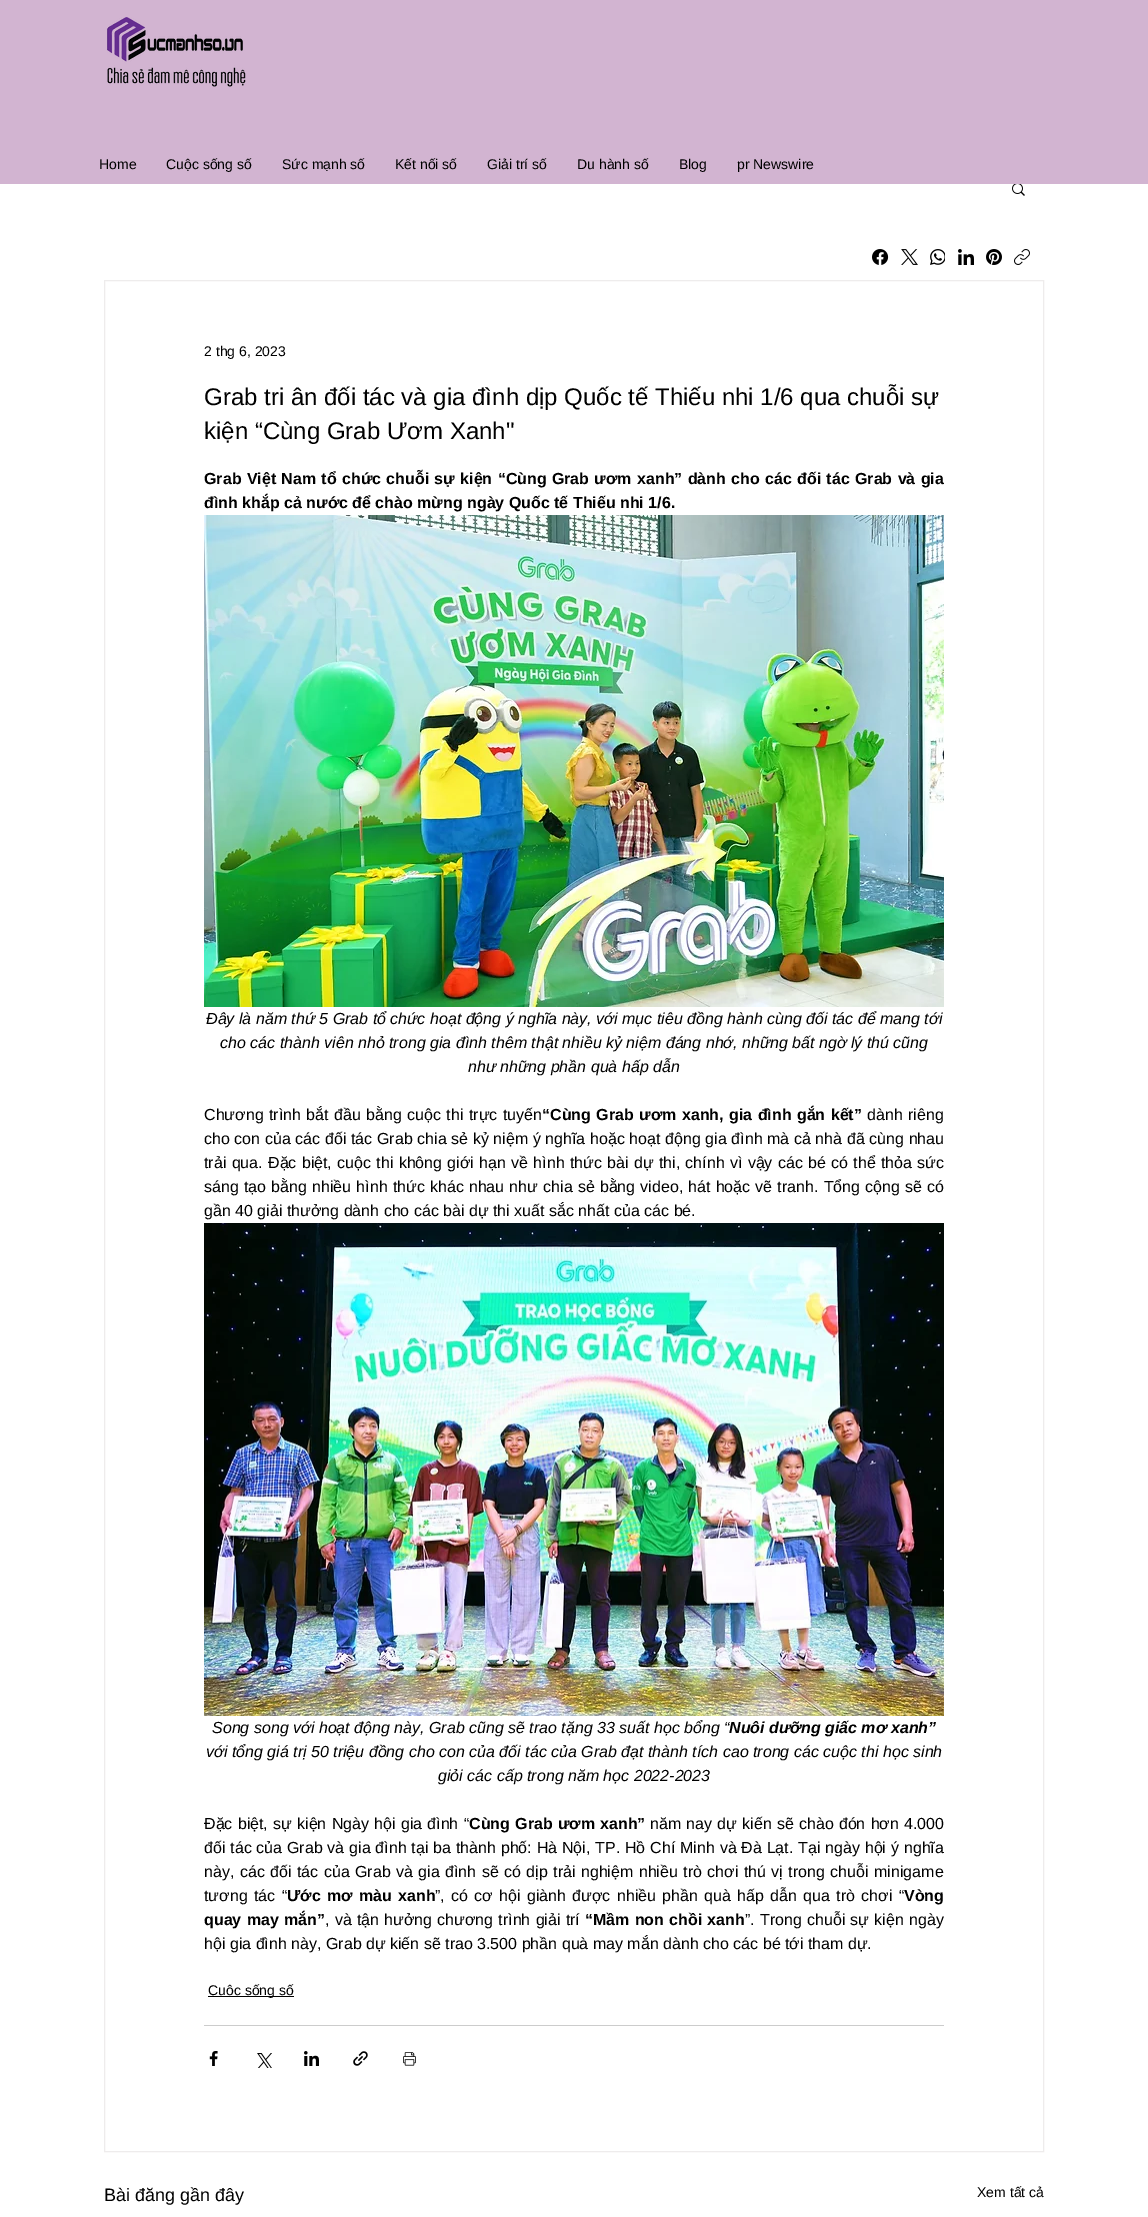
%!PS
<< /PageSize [1148 2217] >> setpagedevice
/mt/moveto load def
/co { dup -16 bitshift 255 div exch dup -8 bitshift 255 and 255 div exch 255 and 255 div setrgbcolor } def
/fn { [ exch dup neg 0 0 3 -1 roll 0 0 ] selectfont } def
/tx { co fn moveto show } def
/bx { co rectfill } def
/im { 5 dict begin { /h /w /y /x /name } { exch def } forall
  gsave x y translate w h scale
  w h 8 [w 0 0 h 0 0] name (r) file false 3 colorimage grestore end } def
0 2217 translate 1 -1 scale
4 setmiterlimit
0 0 1148 2217 16#FFFFFF bx
0 0 1148 184 16#D2B4D1 bx
(media/1.raw) 107 17 139 70 im
(media/2.raw) 872 249 17 16 im
(media/3.raw) 901 249 17 16 im
(media/4.raw) 930 249 15 16 im
(media/5.raw) 958 249 16 16 im
(media/6.raw) 986 249 16 16 im
(media/7.raw) 1014 249 16 16 im
(media/8.raw) 1012 184 13 12 im
16#EEECEC co
104.5 280.5 939 1871 rectstroke
(media/9.raw) 204 515 740 492 im
(media/10.raw) 204 1223 740 493 im
208 1996 86 1 16#000000 bx
204 2025 740 1 16#CCCCCC bx
(media/11.raw) 209 2051 9 15 im
(media/12.raw) 257 2053 15 15 im
(media/13.raw) 304 2051 15 15 im
(media/14.raw) 353 2051 15 15 im
(media/15.raw) 403 2052 13 14 im
(Home) 99 169 /LiberationSans-Regular 14 16#000000 tx
(Cuộc sống số) 166 169 /LiberationSans-Regular 14 16#000000 tx
(Sức mạnh số) 282 169 /LiberationSans-Regular 14 16#000000 tx
(Kết nối số) 395 169 /LiberationSans-Regular 14 16#000000 tx
(Giải trí số) 487 169 /LiberationSans-Regular 14 16#000000 tx
(Du hành số) 577 169 /LiberationSans-Regular 14 16#000000 tx
(Blog) 679 169 /LiberationSans-Regular 14 16#000000 tx
(pr Newswire) 737 169 /LiberationSans-Regular 14 16#000000 tx
(2 thg 6, 2023) 204 356 /LiberationSans-Regular 14 16#000000 tx
(Grab tri ân đối tác và gia đình dịp Quốc tế Thiếu nhi 1/6 qua chuỗi sự) 204 405 /LiberationSans-Regular 24 16#000000 tx
(kiện “Cùng Grab Ươm Xanh") 204 439 /LiberationSans-Regular 24 16#000000 tx
/LiberationSans-Bold 16 fn
204 484 mt .9 0 32 (Grab Việt Nam tổ chức chuỗi sự kiện “Cùng Grab ươm xanh” dành cho các đối tác Grab và gia) widthshow
(đình khắp cả nước để chào mừng ngày Quốc tế Thiếu nhi 1/6.) 204 508 /LiberationSans-Bold 16 16#000000 tx
(Đây là năm thứ 5 Grab tổ chức hoạt động ý nghĩa này, với mục tiêu đồng hành cùng đối tác để mang tới) 206 1024 /LiberationSans-Italic 16 16#000000 tx
(cho các thành viên nhỏ trong gia đình thêm thật nhiều kỷ niệm đáng nhớ, những bất ngờ lý thú cũng) 220 1048 /LiberationSans-Italic 16 16#000000 tx
(như những phần quà hấp dẫn) 468 1072 /LiberationSans-Italic 16 16#000000 tx
/LiberationSans-Regular 16 fn
204 1120 mt 1 0 32 (Chương trình bắt đầu bằng cuộc thi trực tuyến) widthshow
/LiberationSans-Bold 16 fn
542 1120 mt 1 0 32 (“Cùng Grab ươm xanh, gia đình gắn kết”) widthshow
/LiberationSans-Regular 16 fn
867 1120 mt 1 0 32 (dành riêng) widthshow
204 1144 mt .2 0 32 (cho con của các đối tác Grab chia sẻ kỷ niệm ý nghĩa hoặc hoạt động gia đình mà cả nhà đã cùng nhau) widthshow
204 1168 mt .85 0 32 (trải qua. Đặc biệt, cuộc thi không giới hạn về hình thức bài dự thi, chính vì vậy các bé có thể thỏa sức) widthshow
204 1192 mt .7 0 32 (sáng tạo bằng nhiều hình thức khác nhau như chia sẻ bằng video, hát hoặc vẽ tranh. Tổng cộng sẽ có) widthshow
(gần 40 giải thưởng dành cho các bài dự thi xuất sắc nhất của các bé.) 204 1216 /LiberationSans-Regular 16 16#000000 tx
(Song song với hoạt động này, Grab cũng sẽ trao tặng 33 suất học bổng “) 212 1733 /LiberationSans-Italic 16 16#000000 tx
(Nuôi dưỡng giấc mơ xanh”) 729 1733 /LiberationSans-BoldItalic 16 16#000000 tx
(với tổng giá trị 50 triệu đồng cho con của đối tác của Grab đạt thành tích cao trong các cuộc thi học sinh) 206 1757 /LiberationSans-Italic 16 16#000000 tx
(giỏi các cấp trong năm học 2022-2023) 438 1781 /LiberationSans-Italic 16 16#000000 tx
/LiberationSans-Regular 16 fn
204 1829 mt .75 0 32 (Đặc biệt, sự kiện Ngày hội gia đình “) widthshow
/LiberationSans-Bold 16 fn
469 1829 mt .75 0 32 (Cùng Grab ươm xanh”) widthshow
/LiberationSans-Regular 16 fn
650 1829 mt .75 0 32 (năm nay dự kiến sẽ chào đón hơn 4.000) widthshow
204 1853 mt .4 0 32 (đối tác của Grab và gia đình tại ba thành phố: Hà Nội, TP. Hồ Chí Minh và Đà Lạt. Tại ngày hội ý nghĩa) widthshow
204 1877 mt 1 0 32 (này, các đối tác của Grab và gia đình sẽ có dịp trải nghiệm nhiều trò chơi thú vị trong chuỗi minigame) widthshow
204 1901 mt 2 0 32 (tương tác “) widthshow
/LiberationSans-Bold 16 fn
287 1901 mt 2 0 32 (Ước mơ màu xanh) widthshow
/LiberationSans-Regular 16 fn
435 1901 mt 1.9 0 32 (”, có cơ hội giành được nhiều phần quà hấp dẫn qua trò chơi “) widthshow
(Vòng) 904 1901 /LiberationSans-Bold 16 16#000000 tx
204 1925 mt .75 0 32 (quay may mắn”) widthshow
/LiberationSans-Regular 16 fn
325 1925 mt .75 0 32 (, và tận hưởng chương trình giải trí) widthshow
/LiberationSans-Bold 16 fn
585 1925 mt .75 0 32 (“Mầm non chồi xanh) widthshow
/LiberationSans-Regular 16 fn
745 1925 mt .75 0 32 (”. Trong chuỗi sự kiện ngày) widthshow
(hội gia đình này, Grab dự kiến sẽ trao 3.500 phần quà may mắn dành cho các bé tới tham dự.) 204 1949 /LiberationSans-Regular 16 16#000000 tx
(Cuộc sống số) 208 1995 /LiberationSans-Regular 14 16#000000 tx
(Bài đăng gần đây) 104 2201 /LiberationSans-Regular 18 16#000000 tx
(Xem tất cả) 977 2197 /LiberationSans-Regular 14 16#000000 tx
showpage
